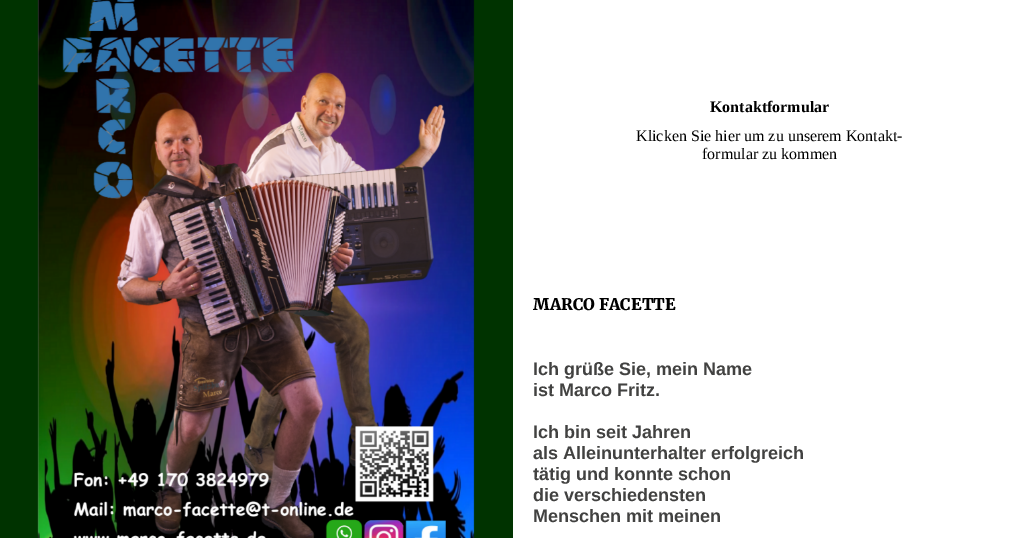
%!PS
<< /PageSize [1026 538] >> setpagedevice
/co { dup -16 bitshift 255 div exch dup -8 bitshift 255 and 255 div exch 255 and 255 div setrgbcolor } def
/fn { [ exch dup neg 0 0 3 -1 roll 0 0 ] selectfont } def
/tx { co fn moveto show } def
/bx { co rectfill } def
/im { 5 dict begin { /h /w /y /x /name } { exch def } forall
  gsave x y translate w h scale
  w h 8 [w 0 0 h 0 0] name (r) file false 3 colorimage grestore end } def
0 538 translate 1 -1 scale
4 setmiterlimit
0 0 1026 538 16#FFFFFF bx
0 0 513 538 16#003300 bx
(media/1.raw) 37 0 438 538 im
(Kontaktformular) 710 112 /LiberationSerif-Bold 16 16#000000 tx
(Klicken Sie hier um zu unserem Kontakt-) 636 141 /LiberationSerif-Regular 16 16#000000 tx
(formular zu kommen) 702 159 /LiberationSerif-Regular 16 16#000000 tx
(MARCO FACETTE) 533 310 /Merriweather-Black 16 16#000000 tx
(Ich grüße Sie, mein Name) 533 375 /LiberationSans-Bold 18 16#424241 tx
(ist Marco Fritz.) 533 396 /LiberationSans-Bold 18 16#424241 tx
(Ich bin seit Jahren) 533 438 /LiberationSans-Bold 18 16#424241 tx
(als Alleinunterhalter erfolgreich) 533 459 /LiberationSans-Bold 18 16#424241 tx
(tätig und konnte schon) 533 480 /LiberationSans-Bold 18 16#424241 tx
(die verschiedensten) 533 501 /LiberationSans-Bold 18 16#424241 tx
(Menschen mit meinen) 533 522 /LiberationSans-Bold 18 16#424241 tx
showpage
